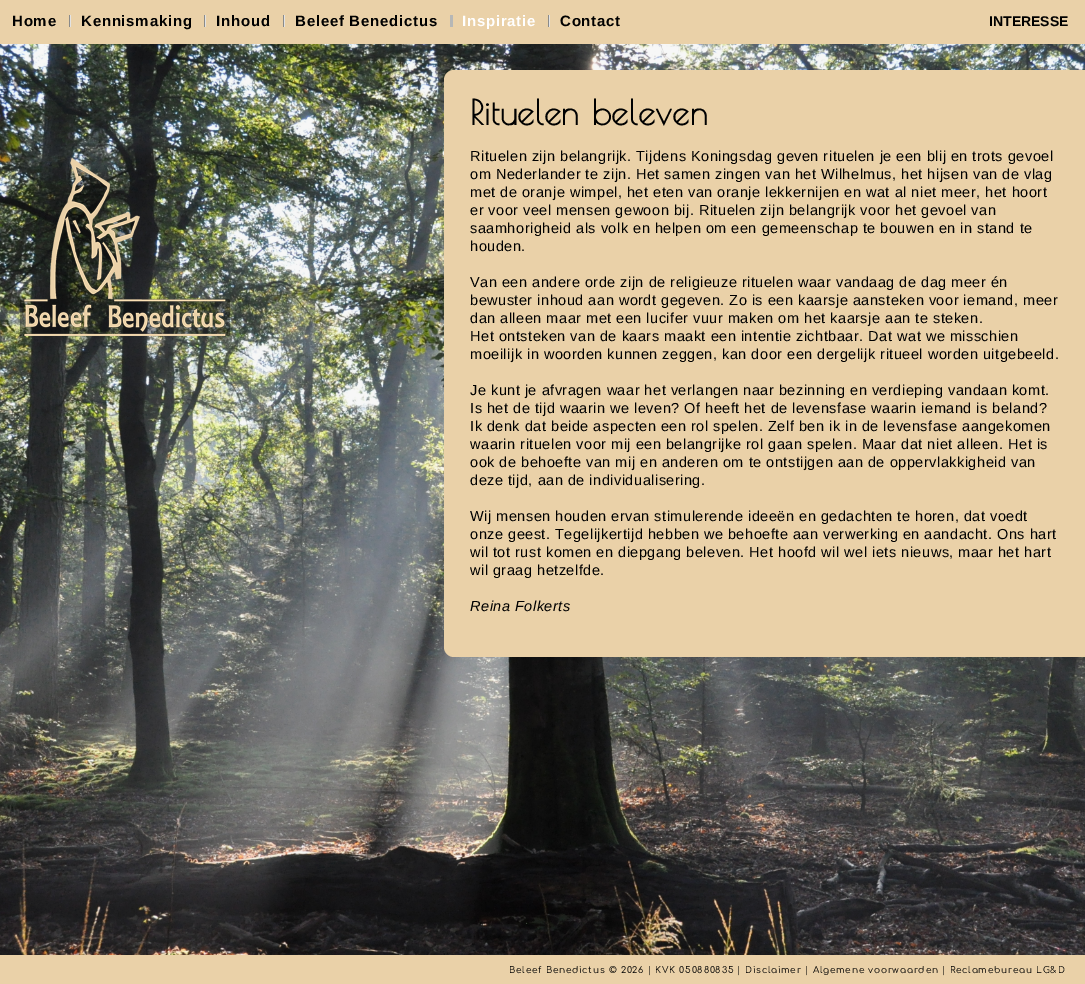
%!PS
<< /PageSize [1085 984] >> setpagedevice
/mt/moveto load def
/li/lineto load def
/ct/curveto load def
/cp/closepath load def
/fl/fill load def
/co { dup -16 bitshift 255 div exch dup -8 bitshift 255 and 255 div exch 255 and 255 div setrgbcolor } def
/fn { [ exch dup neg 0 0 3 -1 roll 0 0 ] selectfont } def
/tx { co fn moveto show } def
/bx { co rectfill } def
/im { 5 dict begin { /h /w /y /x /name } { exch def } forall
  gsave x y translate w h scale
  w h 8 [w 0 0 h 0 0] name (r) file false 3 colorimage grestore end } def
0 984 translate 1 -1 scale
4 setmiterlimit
0 0 1085 984 16#FFFFFF bx
0 0 1085 44 16#EAD1A8 bx
(media/1.raw) 69 15 2 12 im
(media/1.raw) 204 15 2 12 im
(media/1.raw) 283 15 2 12 im
450 15 3 12 16#B6B7B6 bx
(media/1.raw) 548 15 2 12 im
(media/3.raw) 0 44 1085 911 im
(media/2.raw) 20 158 210 178 im
16#EAD1A8 co
454 70 mt 1085 70 li 1085 657 li 454 657 li 448.5 657 444 652.5 444 647 ct 444 80 li 444 74.5 448.5 70 454 70 ct cp fl
0 955 1085 29 16#EAD1A8 bx
/LiberationSans-Bold 15 fn
16#000000 co
12 26 mt .75 0 (Home) ashow
81 26 mt .75 0 (Kennismaking) ashow
216 26 mt .75 0 (Inhoud) ashow
295 26 mt .75 0 (Beleef Benedictus) ashow
16#FFFFFF co
462 26 mt .75 0 (Inspiratie) ashow
16#000000 co
560 26 mt .75 0 (Contact) ashow
(INTERESSE) 989 26 /LiberationSans-Bold 14 16#000000 tx
/PoiretOne-Bold 34 fn
470 125 mt .5 0 (Rituelen beleven) ashow
/LiberationSans-Regular 14.5 fn
470 161 mt .5 0 (Rituelen zijn belangrijk. Tijdens Koningsdag geven rituelen je een blij en trots gevoel) ashow
470 179 mt .5 0 (om Nederlander te zijn. Het samen zingen van het Wilhelmus, het hijsen van de vlag) ashow
470 197 mt .5 0 (met de oranje wimpel, het eten van oranje lekkernijen en wat al niet meer, het hoort) ashow
470 215 mt .5 0 (er voor veel mensen gewoon bij. Rituelen zijn belangrijk voor het gevoel van) ashow
470 233 mt .5 0 (saamhorigheid als volk en helpen om een gemeenschap te bouwen en in stand te) ashow
470 251 mt .5 0 (houden.) ashow
470 287 mt .5 0 (Van een andere orde zijn de religieuze rituelen waar vandaag de dag meer én) ashow
470 305 mt .5 0 (bewuster inhoud aan wordt gegeven. Zo is een kaarsje aansteken voor iemand, meer) ashow
470 323 mt .5 0 (dan alleen maar met een lucifer vuur maken om het kaarsje aan te steken.) ashow
470 341 mt .5 0 (Het ontsteken van de kaars maakt een intentie zichtbaar. Dat wat we misschien) ashow
470 359 mt .5 0 (moeilijk in woorden kunnen zeggen, kan door een dergelijk ritueel worden uitgebeeld.) ashow
470 395 mt .5 0 (Je kunt je afvragen waar het verlangen naar bezinning en verdieping vandaan komt.) ashow
470 413 mt .5 0 (Is het de tijd waarin we leven? Of heeft het de levensfase waarin iemand is beland?) ashow
470 431 mt .5 0 (Ik denk dat beide aspecten een rol spelen. Zelf ben ik in de levensfase aangekomen) ashow
470 449 mt .5 0 (waarin rituelen voor mij een belangrijke rol gaan spelen. Maar dat niet alleen. Het is) ashow
470 467 mt .5 0 (ook de behoefte van mij en anderen om te ontstijgen aan de oppervlakkigheid van) ashow
470 485 mt .5 0 (deze tijd, aan de individualisering.) ashow
470 521 mt .5 0 (Wij mensen houden ervan stimulerende ideeën en gedachten te horen, dat voedt) ashow
470 539 mt .5 0 (onze geest. Tegelijkertijd hebben we behoefte aan verwerking en aandacht. Ons hart) ashow
470 557 mt .5 0 (wil tot rust komen en diepgang beleven. Het hoofd wil wel iets nieuws, maar het hart) ashow
470 575 mt .5 0 (wil graag hetzelfde.) ashow
/LiberationSans-Italic 14.5 fn
470 611 mt .5 0 (Reina Folkerts) ashow
/Comfortaa-Regular 9 fn
509 973 mt .75 0 (Beleef Benedictus © 2026 | KVK 050880835 | Disclaimer | Algemene voorwaarden | Reclamebureau LG&D) ashow
showpage
